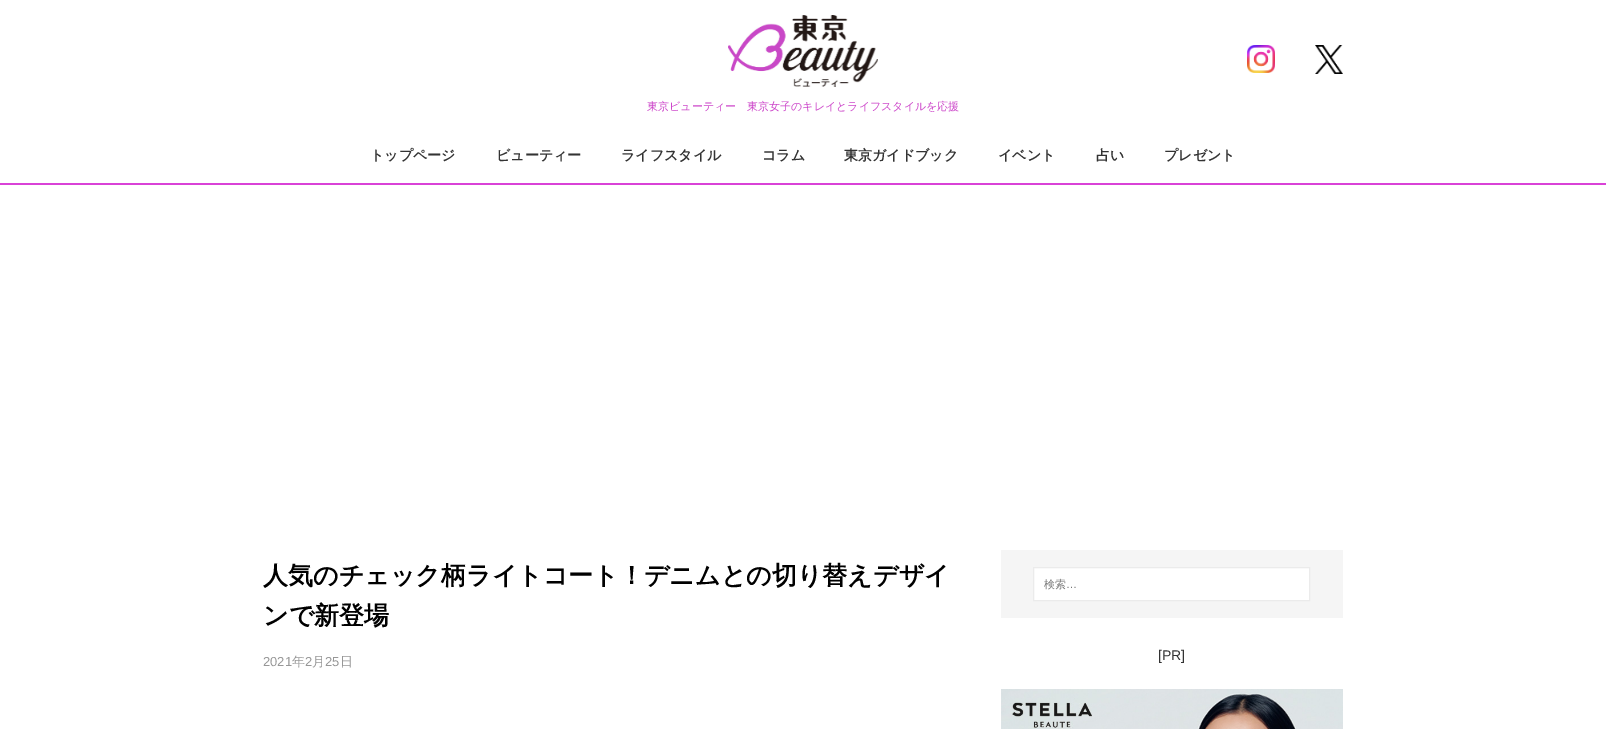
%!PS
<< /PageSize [1606 729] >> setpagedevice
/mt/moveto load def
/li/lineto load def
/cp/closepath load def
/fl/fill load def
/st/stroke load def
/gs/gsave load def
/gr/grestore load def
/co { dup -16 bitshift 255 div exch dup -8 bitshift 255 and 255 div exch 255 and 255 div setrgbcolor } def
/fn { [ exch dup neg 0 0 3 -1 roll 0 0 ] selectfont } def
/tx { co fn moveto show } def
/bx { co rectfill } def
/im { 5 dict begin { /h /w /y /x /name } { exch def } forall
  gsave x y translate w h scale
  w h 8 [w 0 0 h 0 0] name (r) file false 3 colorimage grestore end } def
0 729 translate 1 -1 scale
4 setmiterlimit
0 0 1606 729 16#FFFFFF bx
0 183 1606 2 16#D942D7 bx
(media/1.raw) 728 15 150 72 im
(media/2.raw) 1247 45 28 28 im
(media/3.raw) 1315 45 28 29 im
1001 550 342 68 16#F5F5F5 bx
16#FFFFFF co
1033.5 567.5 mt 1309.5 567.5 li 1309.5 600.5 li 1033.5 600.5 li cp gs fl gr
16#EBEBEB co
st
(media/4.raw) 1001 689 342 40 im
(東京ビューティー　東京女子のキレイとライフスタイルを応援) 647 110 /WenQuanYiZenHei-Medium 11 16#CD47CA tx
(トップページ) 370 160 /WenQuanYiZenHei-Bold 14 16#333333 tx
(ビューティー) 496 160 /WenQuanYiZenHei-Bold 14 16#333333 tx
(ライフスタイル) 621 160 /WenQuanYiZenHei-Bold 14 16#333333 tx
(コラム) 762 160 /WenQuanYiZenHei-Bold 14 16#333333 tx
(東京ガイドブック) 844 160 /WenQuanYiZenHei-Bold 14 16#333333 tx
(イベント) 998 160 /WenQuanYiZenHei-Bold 14 16#333333 tx
(占い) 1096 160 /WenQuanYiZenHei-Bold 14 16#333333 tx
(プレゼント) 1164 160 /WenQuanYiZenHei-Bold 14 16#333333 tx
(人気のチェック柄ライトコート！デニムとの切り替えデザイ) 263 584 /WenQuanYiZenHei-Bold 25 16#000000 tx
(ンで新登場) 263 624 /WenQuanYiZenHei-Bold 25 16#000000 tx
(2021) 263 666 /LiberationSans-Regular 13 16#979797 tx
(年) 292 666 /WenQuanYiZenHei-Medium 13 16#979797 tx
(2) 305 666 /LiberationSans-Regular 13 16#979797 tx
(月) 312 666 /WenQuanYiZenHei-Medium 13 16#979797 tx
(25) 325 666 /LiberationSans-Regular 13 16#979797 tx
(日) 340 666 /WenQuanYiZenHei-Medium 13 16#979797 tx
(検索) 1044 588 /WenQuanYiZenHei-Medium 11 16#757575 tx
(…) 1066 588 /LiberationSans-Regular 11 16#757575 tx
([PR]) 1158 660 /LiberationSans-Regular 14 16#333333 tx
showpage
